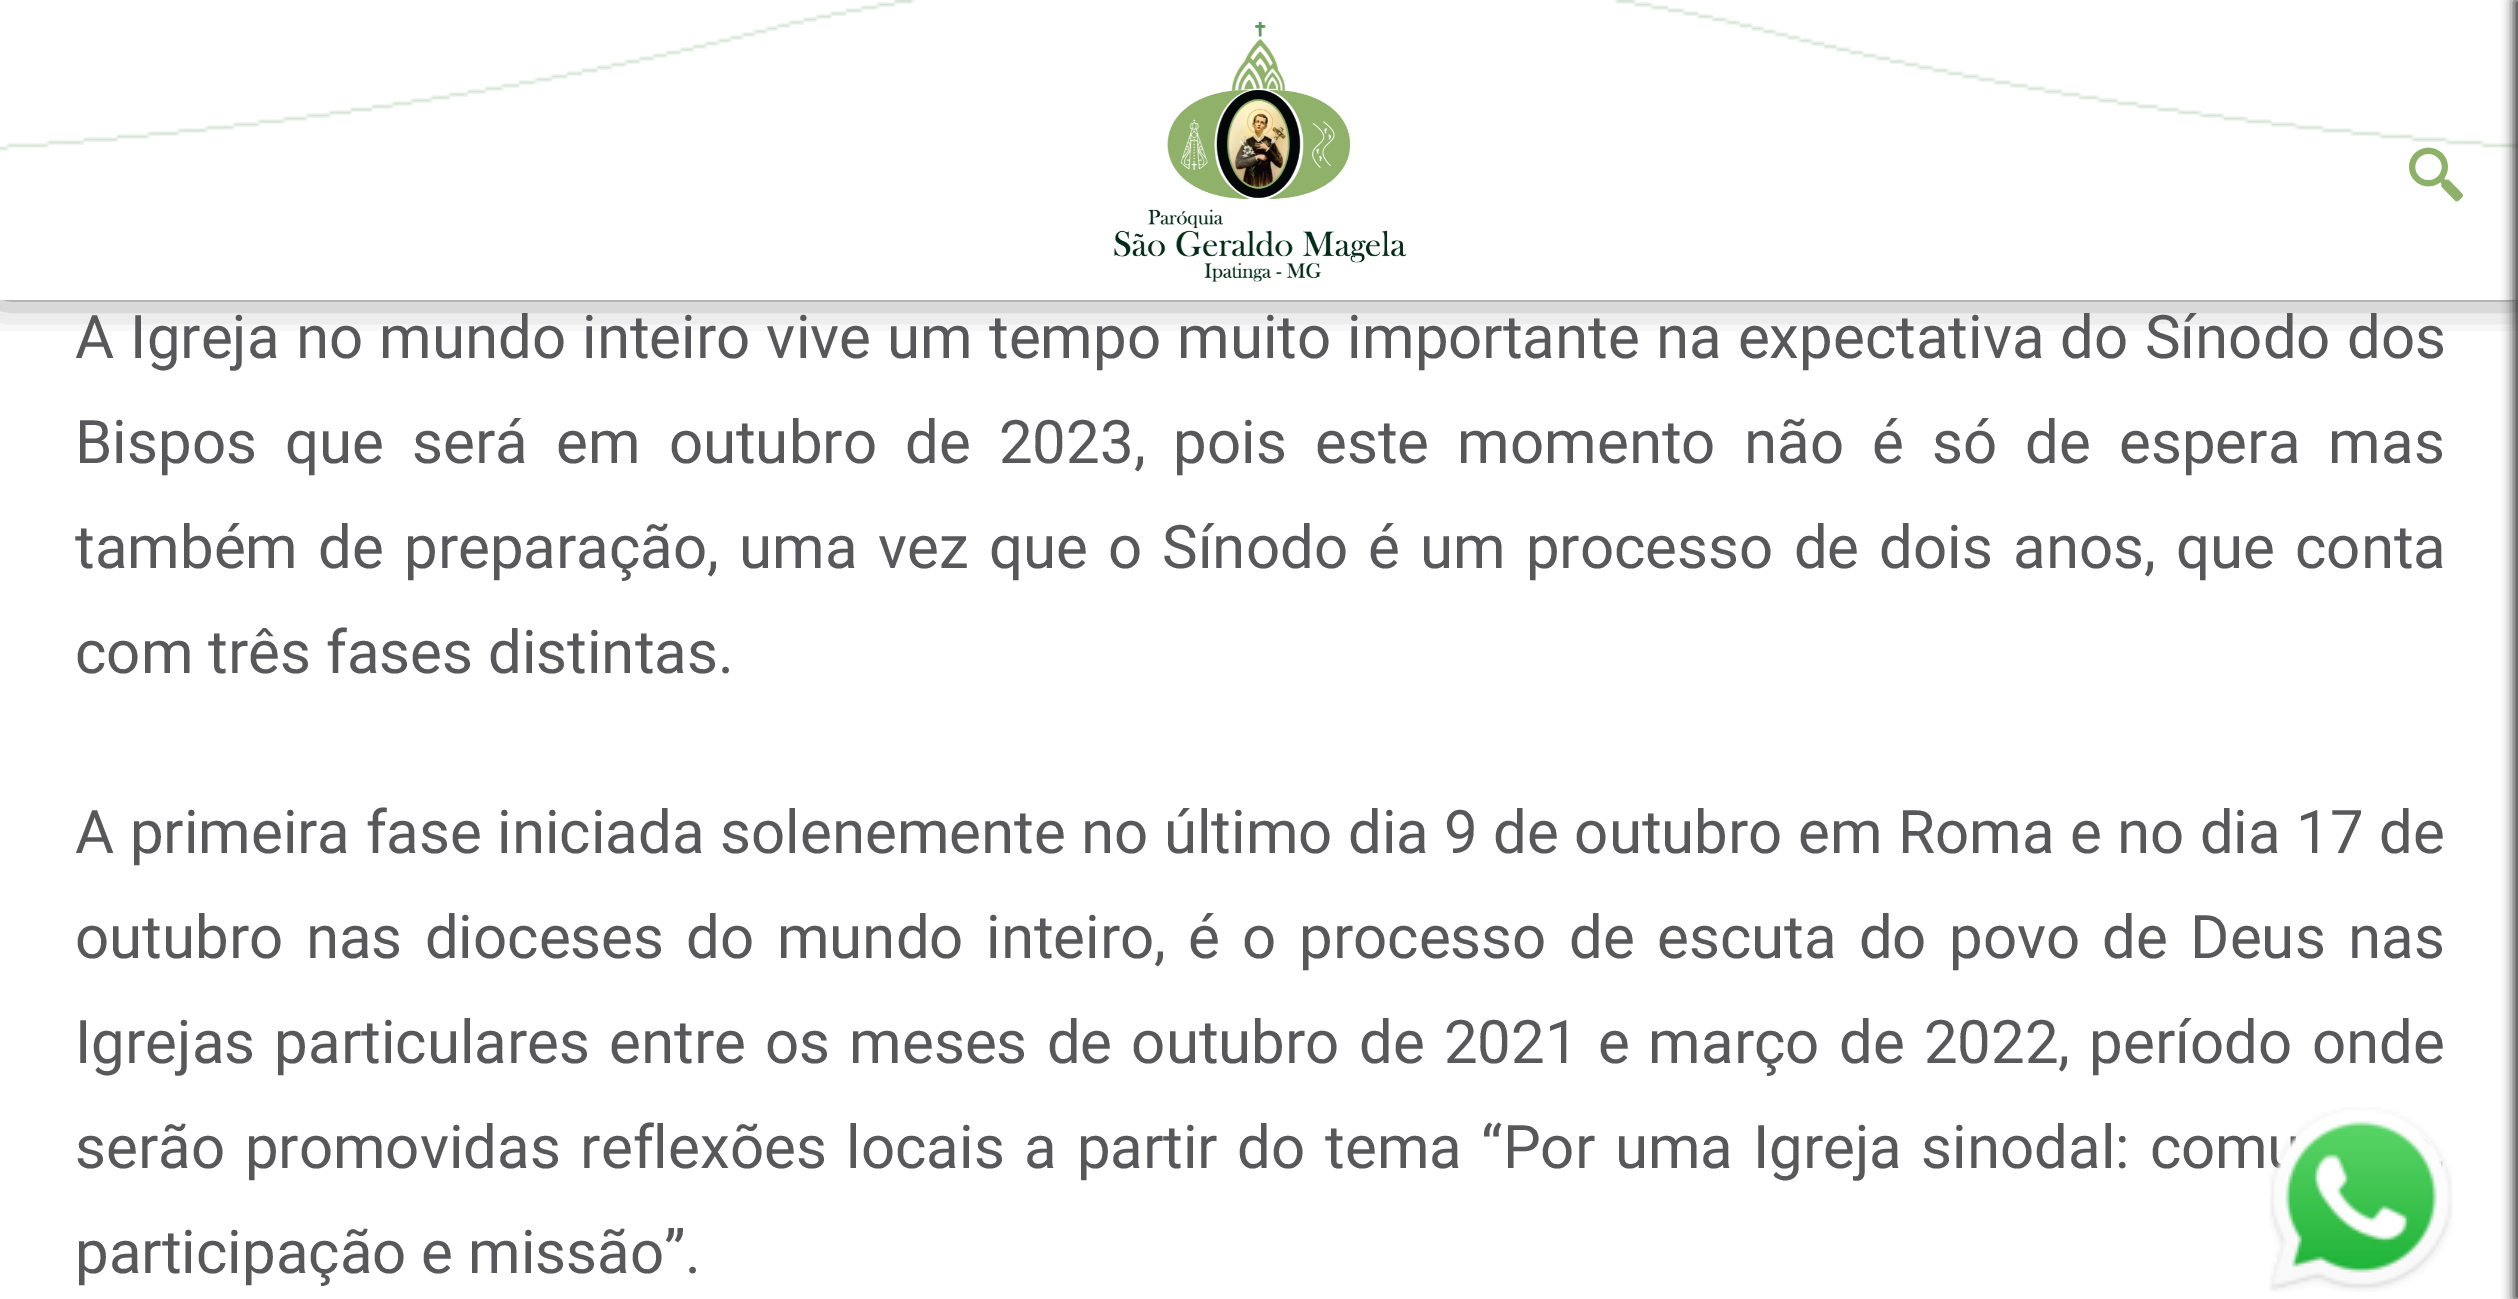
%!PS
<< /PageSize [2518 1299] /PageUsesTransparency true >> setpagedevice
/mt/moveto load def
/gs/gsave load def
/gr/grestore load def
/co { dup -16 bitshift 255 div exch dup -8 bitshift 255 and 255 div exch 255 and 255 div setrgbcolor } def
/fn { [ exch dup neg 0 0 3 -1 roll 0 0 ] selectfont } def
/tx { co fn moveto show } def
/bx { co rectfill } def
/al { dup .setfillconstantalpha .setstrokeconstantalpha } def
/rr { 5 dict begin { /r /h /w /y /x } { exch def } forall
  x r add y moveto x w add y 2 copy h add r arct x w add y h add x 1 index r arct
  x y h add x y r arct x y 2 copy exch w add exch r arct closepath end } def
/sh { 12 dict begin { /a /b /q /h /w /y /x } { exch def } forall gsave /was 0 def
  9 -2 -9 { dup b mul 4 div /e exch def 1 sub .425 mul 2.718 exch exp 1 add a .99 .min exch div /now exch def
    1 1 now sub 1 was sub div sub al /was now def
    w h .min e 2 mul add 0 gt { x e sub y e sub w e 2 mul add h e 2 mul add
      q e add b .6 mul add w h .min 2 div e add .min 0 .max rr fill } if } for grestore end } def
/im { 5 dict begin { /h /w /y /x /name } { exch def } forall
  gsave x y translate w h scale
  w h 8 [w 0 0 h 0 0] name (r) file false 3 colorimage grestore end } def
0 .pushpdf14devicefilter
0 1299 translate 1 -1 scale
4 setmiterlimit
0 0 2518 1299 16#FFFFFF bx
gs
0 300 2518 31 rectclip
16#000000 co
0 -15 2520 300 0 22.5 1 sh
gr
(media/1.raw) 0 0 2518 151 im
(media/2.raw) 1114 21 293 261 im
(media/3.raw) 2409 147 54 55 im
16#252525 co
2514 0 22 1299 0 6 1 sh
/Roboto-Regular 60 fn
16#58585B co
75 358 mt 1.25 0 32 (A Igreja no mundo inteiro vive um tempo muito importante na expectativa do Sínodo dos) widthshow
75 463 mt 13.25 0 32 (Bispos que será em outubro de 2023, pois este momento não é só de espera mas) widthshow
75 568 mt 5.25 0 32 (também de preparação, uma vez que o Sínodo é um processo de dois anos, que conta) widthshow
(com três fases distintas.) 75 673 /Roboto-Regular 60 16#58585B tx
75 853 mt .5 0 32 (A primeira fase iniciada solenemente no último dia 9 de outubro em Roma e no dia 17 de) widthshow
75 958 mt 7.4 0 32 (outubro nas dioceses do mundo inteiro, é o processo de escuta do povo de Deus nas) widthshow
75 1063 mt 4.25 0 32 (Igrejas particulares entre os meses de outubro de 2021 e março de 2022, período onde) widthshow
75 1168 mt 4.75 0 32 (serão promovidas reflexões locais a partir do tema “Por uma Igreja sinodal: comu) widthshow
(participação e missão”.) 75 1273 /Roboto-Regular 60 16#58585B tx
(media/4.raw) 2269 1107 184 185 im
.poppdf14devicefilter showpage
